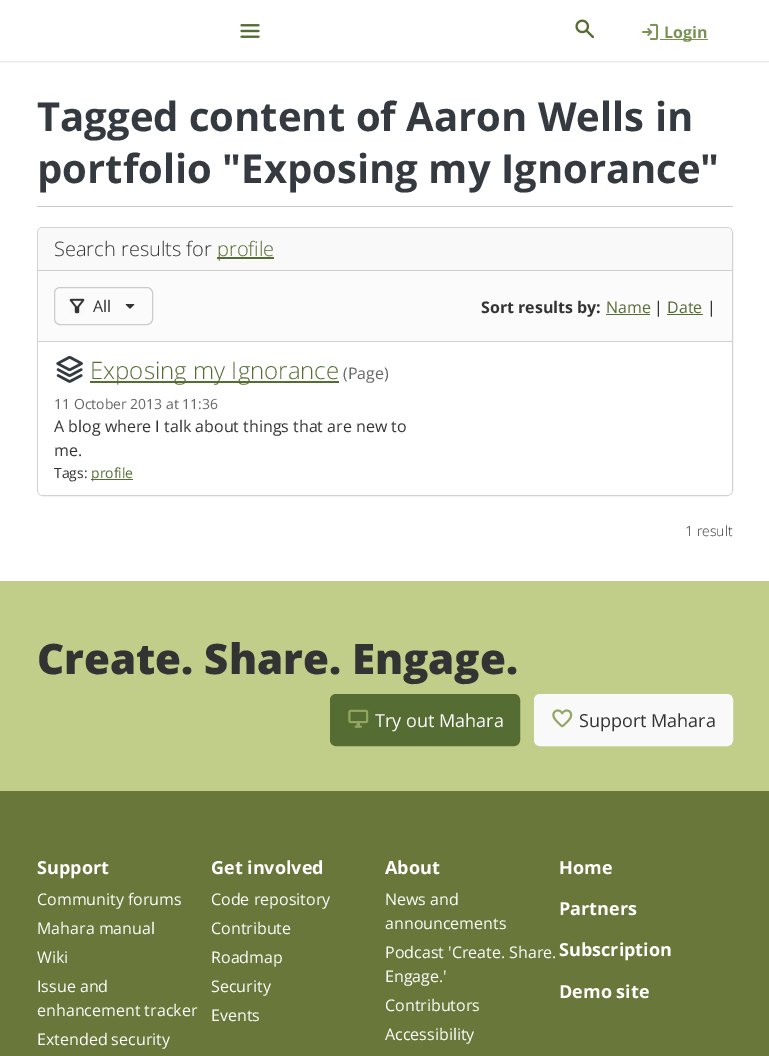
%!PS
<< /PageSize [769 1056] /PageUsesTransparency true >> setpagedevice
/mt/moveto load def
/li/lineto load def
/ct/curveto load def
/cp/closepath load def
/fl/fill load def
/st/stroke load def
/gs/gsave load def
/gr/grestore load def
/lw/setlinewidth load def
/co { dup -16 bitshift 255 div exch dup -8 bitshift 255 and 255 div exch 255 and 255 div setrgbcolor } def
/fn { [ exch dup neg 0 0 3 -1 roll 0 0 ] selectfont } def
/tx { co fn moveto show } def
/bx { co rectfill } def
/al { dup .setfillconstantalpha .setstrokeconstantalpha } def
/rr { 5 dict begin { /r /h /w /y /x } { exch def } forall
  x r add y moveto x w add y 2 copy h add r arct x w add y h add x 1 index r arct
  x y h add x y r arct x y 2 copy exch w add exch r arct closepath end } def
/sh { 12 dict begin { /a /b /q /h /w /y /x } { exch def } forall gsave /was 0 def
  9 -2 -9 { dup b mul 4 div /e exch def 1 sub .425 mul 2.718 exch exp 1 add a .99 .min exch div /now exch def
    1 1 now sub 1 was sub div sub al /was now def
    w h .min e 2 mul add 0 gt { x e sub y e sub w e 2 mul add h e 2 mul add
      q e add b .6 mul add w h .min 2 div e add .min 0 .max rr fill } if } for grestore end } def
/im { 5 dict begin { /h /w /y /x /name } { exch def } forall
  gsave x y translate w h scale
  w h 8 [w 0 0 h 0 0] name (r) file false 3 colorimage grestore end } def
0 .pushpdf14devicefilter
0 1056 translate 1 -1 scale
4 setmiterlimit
0 0 769 1056 16#FFFFFF bx
gs
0 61 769 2 rectclip
16#000000 co
0 0 769 61 0 1.5 .2 sh
gr
(media/1.raw) 240 24 20 14 im
(media/2.raw) 575 19 19 20 im
(media/3.raw) 642 23 17 17 im
660 39 48 1 16#799152 bx
37 206 696 1 16#CCCCCC bx
16#D2D2D2 co
37.5 227.5 695 268 5.5 rr st
16#F9F9F9 co
43 228 mt 727 228 li 730 228 732 230 732 233 ct 732 271 li 38 271 li 38 233 li 38 230 40 228 43 228 ct cp fl
38 270 694 1 16#CDCDCD bx
217 257 57 2 16#556D32 bx
38 271 694 70 16#FBFBFB bx
38 341 694 1 16#CFCFCF bx
16#CCCCCC co
54.5 287.5 98 37 5.5 rr st
(media/4.raw) 69 298 16 16 im
(media/5.raw) 125 304 10 5 im
606 314 44 1 16#556D32 bx
667 314 36 1 16#556D32 bx
16#FFFFFF co
38 342 mt 732 342 li 732 490 li 732 493 730 495 727 495 ct 43 495 li 40 495 38 493 38 490 ct cp fl
(media/6.raw) 56 355 27 28 im
90 381 249 2 16#556D32 bx
91 479 42 1 16#556D32 bx
0 791 769 265 16#69783A bx
0 581 769 210 16#C1CE8A bx
16#556D32 co
331 695 188 50 5 rr gs fl gr
2 lw
st
(media/7.raw) 348 709 21 19 im
16#F9F9F9 co
535 695 197 50 5 rr gs fl gr
st
(media/8.raw) 552 709 21 19 im
(Login) 664 38 /OpenSans-Bold 16 16#799152 tx
(Tagged content of Aaron Wells in) 37 131 /OpenSans-Bold 40 16#343A40 tx
(portfolio "Exposing my Ignorance") 37 183 /OpenSans-Bold 40 16#343A40 tx
(Search results for) 54 256 /OpenSans-Light 20 16#333333 tx
(profile) 217 256 /OpenSans-Light 20 16#556D32 tx
(All) 93 312 /OpenSans-Regular 16 16#333333 tx
(Sort results by:) 481 313 /OpenSans-Bold 16 16#333333 tx
(Name) 606 313 /OpenSans-Regular 16 16#556D32 tx
(|) 654 313 /OpenSans-Regular 16 16#333333 tx
(Date) 667 313 /OpenSans-Regular 16 16#556D32 tx
(|) 707 313 /OpenSans-Regular 16 16#333333 tx
(Exposing my Ignorance) 90 379 /OpenSans-Light 24 16#556D32 tx
(\(Page\)) 343 379 /OpenSans-Regular 16 16#666666 tx
(11 October 2013 at 11:36) 54 409 /OpenSans-Regular 14 16#666666 tx
(A blog where I talk about things that are new to) 54 432 /OpenSans-Regular 16 16#333333 tx
(me.) 54 456 /OpenSans-Regular 16 16#333333 tx
(Tags:) 54 478 /OpenSans-Regular 14 16#333333 tx
(profile) 91 478 /OpenSans-Regular 14 16#556D32 tx
(1 result) 685 536 /OpenSans-Light 14 16#333333 tx
(Create. Share. Engage.) 37 674 /OpenSans-ExtraBold 42 16#333333 tx
(Try out Mahara) 375 727 /OpenSans-Regular 18 16#FFFFFF tx
(Support Mahara) 579 727 /OpenSans-Regular 18 16#333333 tx
(Support) 37 874 /OpenSans-Bold 18 16#FFFFFF tx
(Community forums) 37 905 /OpenSans-Regular 16 16#FFFFFF tx
(Mahara manual) 37 934 /OpenSans-Regular 16 16#FFFFFF tx
(Wiki) 37 963 /OpenSans-Regular 16 16#FFFFFF tx
(Issue and) 37 992 /OpenSans-Regular 16 16#FFFFFF tx
(enhancement tracker) 37 1016 /OpenSans-Regular 16 16#FFFFFF tx
(Extended security) 37 1045 /OpenSans-Regular 16 16#FFFFFF tx
(Get involved) 211 874 /OpenSans-Bold 18 16#FFFFFF tx
(Code repository) 211 905 /OpenSans-Regular 16 16#FFFFFF tx
(Contribute) 211 934 /OpenSans-Regular 16 16#FFFFFF tx
(Roadmap) 211 963 /OpenSans-Regular 16 16#FFFFFF tx
(Security) 211 992 /OpenSans-Regular 16 16#FFFFFF tx
(Events) 211 1021 /OpenSans-Regular 16 16#FFFFFF tx
(About) 385 874 /OpenSans-Bold 18 16#FFFFFF tx
(News and) 385 905 /OpenSans-Regular 16 16#FFFFFF tx
(announcements) 385 929 /OpenSans-Regular 16 16#FFFFFF tx
(Podcast 'Create. Share.) 385 958 /OpenSans-Regular 16 16#FFFFFF tx
(Engage.') 385 982 /OpenSans-Regular 16 16#FFFFFF tx
(Contributors) 385 1011 /OpenSans-Regular 16 16#FFFFFF tx
(Accessibility) 385 1040 /OpenSans-Regular 16 16#FFFFFF tx
(Home) 559 874 /OpenSans-Bold 18 16#FFFFFF tx
(Partners) 559 915 /OpenSans-Bold 18 16#FFFFFF tx
(Subscription) 559 956 /OpenSans-Bold 18 16#FFFFFF tx
(Demo site) 559 998 /OpenSans-Bold 18 16#FFFFFF tx
.poppdf14devicefilter showpage
